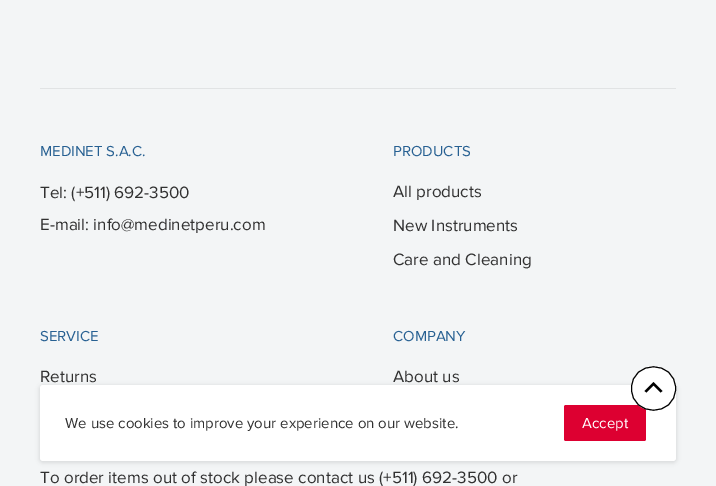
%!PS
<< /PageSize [716 486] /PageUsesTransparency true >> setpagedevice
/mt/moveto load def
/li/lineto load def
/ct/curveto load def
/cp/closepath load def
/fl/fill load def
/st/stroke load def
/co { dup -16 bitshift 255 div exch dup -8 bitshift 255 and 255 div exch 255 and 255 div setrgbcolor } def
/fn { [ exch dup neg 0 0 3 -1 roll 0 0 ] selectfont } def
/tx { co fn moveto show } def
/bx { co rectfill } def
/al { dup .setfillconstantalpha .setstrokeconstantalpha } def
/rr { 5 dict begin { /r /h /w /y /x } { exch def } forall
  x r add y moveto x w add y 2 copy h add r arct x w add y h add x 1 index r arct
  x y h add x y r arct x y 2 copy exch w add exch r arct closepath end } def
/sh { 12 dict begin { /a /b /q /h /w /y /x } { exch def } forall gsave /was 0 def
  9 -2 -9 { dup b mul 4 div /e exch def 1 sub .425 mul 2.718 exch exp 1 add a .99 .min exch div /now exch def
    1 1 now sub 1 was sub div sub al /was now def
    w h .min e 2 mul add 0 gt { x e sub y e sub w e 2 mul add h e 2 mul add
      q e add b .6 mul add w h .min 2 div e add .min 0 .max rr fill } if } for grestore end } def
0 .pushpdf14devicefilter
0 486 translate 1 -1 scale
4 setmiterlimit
0 0 716 486 16#F3F5F6 bx
40 88 636 1 16#E1E3E4 bx
16#000000 co
39 385 638 78 4 2 .1 sh
16#FFFFFF co
40 385 636 76 3 rr fl
16#DD0031 co
564 405 82 36 2 rr fl
16#FFFFFF co
676 388 mt 676 418 631 418 631 388 ct 631 359 676 359 676 388 ct cp fl
16#000000 co
675.5 388.5 mt 675.5 417.5 631.5 417.5 631.5 388.5 ct 631.5 359.5 675.5 359.5 675.5 388.5 ct cp st
653.5 382 mt 644.5 391 li 646.5 392.5 li 653.5 385.5 li 660.5 392.5 li 662.5 391 li cp fl
(MEDINET S.A.C.) 40 156 /ProximaNova-Regular 15 16#276092 tx
(Tel: \(+511\) 692-3500) 40 198 /ProximaNova-Regular 17 16#313131 tx
(E-mail: info@medinetperu.com) 40 230 /ProximaNova-Regular 17 16#313131 tx
(PRODUCTS) 393 156 /ProximaNova-Regular 15 16#276092 tx
(All products) 393 197 /ProximaNova-Regular 17 16#313131 tx
(New Instruments) 393 231 /ProximaNova-Regular 17 16#313131 tx
(Care and Cleaning) 393 265 /ProximaNova-Regular 17 16#313131 tx
(SERVICE) 40 341 /ProximaNova-Regular 15 16#276092 tx
(Returns) 40 382 /ProximaNova-Regular 17 16#313131 tx
(COMPANY) 393 341 /ProximaNova-Regular 15 16#276092 tx
(About us) 393 382 /ProximaNova-Regular 17 16#313131 tx
(To order items out of stock please contact us \(+511\) 692-3500 or) 40 483 /ProximaNova-Regular 17 16#313131 tx
(We use cookies to improve your experience on our website.) 65 428 /ProximaNova-Regular 15 16#313131 tx
(Accept) 582 428 /ProximaNova-Regular 15 16#FFFFFF tx
.poppdf14devicefilter showpage
